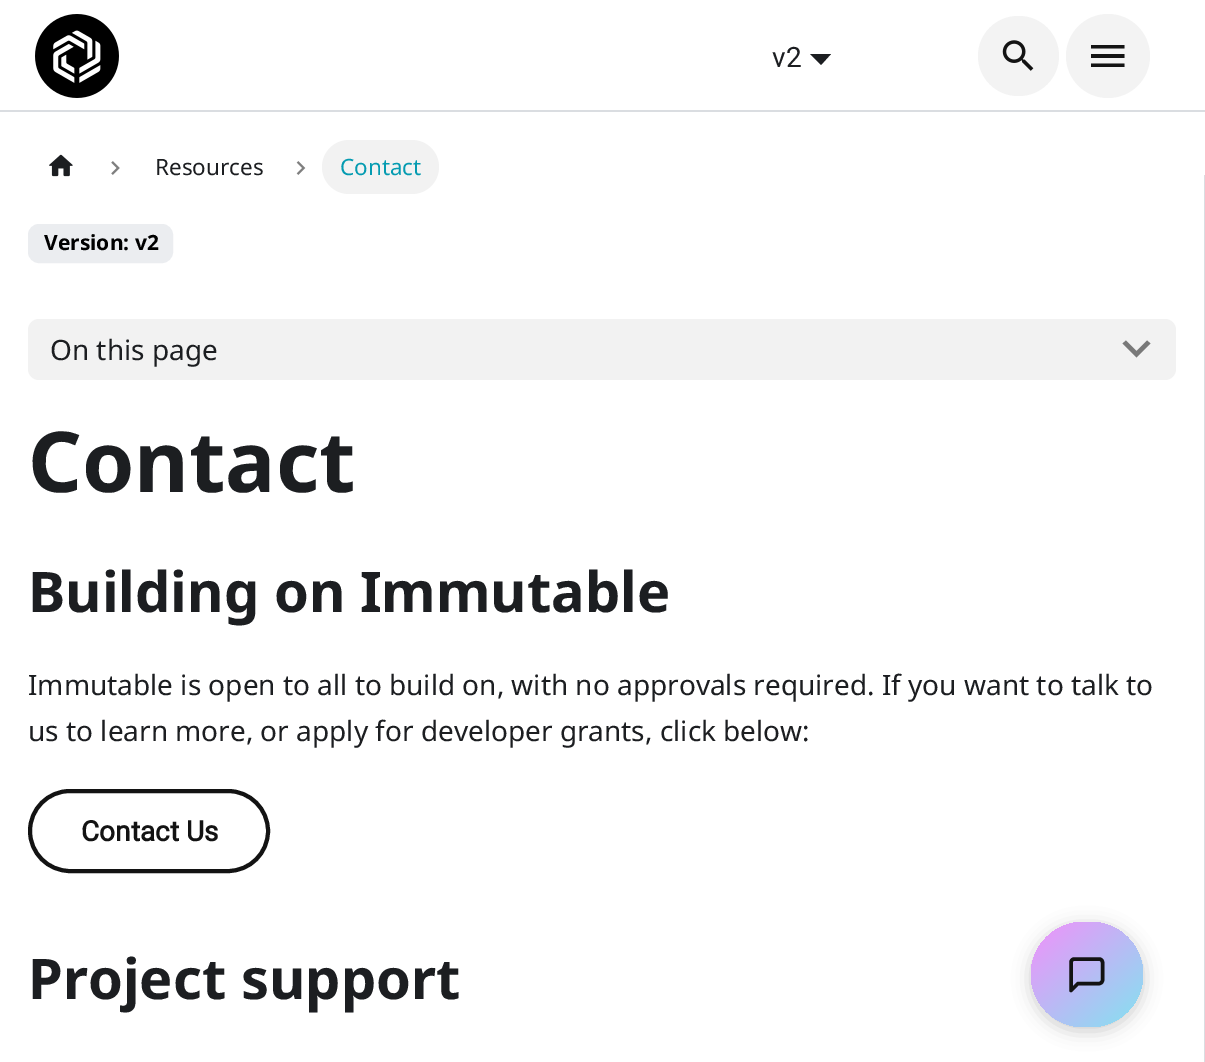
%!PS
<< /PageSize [1205 1062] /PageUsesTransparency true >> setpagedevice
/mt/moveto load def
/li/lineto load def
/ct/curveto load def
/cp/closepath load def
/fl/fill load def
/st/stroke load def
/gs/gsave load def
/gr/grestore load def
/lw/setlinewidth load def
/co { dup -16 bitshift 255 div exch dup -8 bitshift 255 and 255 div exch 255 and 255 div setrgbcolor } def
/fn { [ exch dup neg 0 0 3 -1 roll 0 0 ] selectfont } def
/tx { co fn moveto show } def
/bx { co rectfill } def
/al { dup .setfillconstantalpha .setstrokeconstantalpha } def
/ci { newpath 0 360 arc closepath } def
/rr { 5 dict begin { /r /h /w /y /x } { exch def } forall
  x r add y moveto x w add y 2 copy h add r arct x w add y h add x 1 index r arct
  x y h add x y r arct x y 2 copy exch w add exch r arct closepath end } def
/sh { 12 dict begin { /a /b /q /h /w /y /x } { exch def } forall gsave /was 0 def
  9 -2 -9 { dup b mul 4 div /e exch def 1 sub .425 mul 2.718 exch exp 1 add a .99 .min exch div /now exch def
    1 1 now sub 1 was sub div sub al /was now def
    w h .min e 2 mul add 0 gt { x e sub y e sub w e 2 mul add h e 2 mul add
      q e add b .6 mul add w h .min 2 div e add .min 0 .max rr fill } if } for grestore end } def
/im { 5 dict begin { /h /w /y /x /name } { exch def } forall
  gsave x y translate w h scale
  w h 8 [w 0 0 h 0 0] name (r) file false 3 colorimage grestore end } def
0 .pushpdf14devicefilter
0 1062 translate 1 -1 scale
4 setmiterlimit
0 0 1205 1062 16#FFFFFF bx
0 110 1205 2 16#DADDE1 bx
(media/1.raw) 35 14 84 84 im
16#1C1E21 co
810 54 mt 831 54 li 821 65 li cp fl
16#F3F3F3 co
978 16 81 80 40 rr fl
(media/2.raw) 1002 40 32 31 im
1108 56 42 ci fl
16#131313 co
1091 67 mt 1124.5 67 li 1124.5 63.5 li 1091 63.5 li cp 1091 58 mt 1124.5 58 li 1124.5 54 li 1091 54 li cp 1091 45 mt 1091 48.5 li 1124.5 48.5 li 1124.5 45 li cp fl
(media/3.raw) 49 154 24 23 im
(media/4.raw) 111 161 9 14 im
(media/5.raw) 296 161 10 14 im
16#F2F2F2 co
322 140 117 54 27 rr fl
16#EBEDF0 co
29 225 143 37 10 rr gs fl gr
2 lw
st
16#F2F2F2 co
28 319 1148 61 11 rr fl
16#797979 co
1147 340.5 mt 1136.5 351 li 1126 340.5 li 1122.5 343.5 li 1136.5 357.5 li 1150.5 343.5 li cp fl
16#131313 co
4 lw
30 791 238 80 40 rr st
1204 175 1 887 16#DADDE1 bx
16#000000 co
1031 926 112 105 52.5 9 .2 sh
gs 1031 922 112 105 52.5 rr clip newpath
<< /ShadingType 2 /ColorSpace /DeviceRGB /Coords [1035 919 1139 1031] /Extend [true true] /Function << /FunctionType 2 /Domain [0 1] /C0 [.945 .569 .98] /C1 [.514 .89 .941] /N 1 >> >> shfill gr
16#131313 co
3.5 lw
1 setlinecap
1 setlinejoin
1102.5 980 mt 1102.5 982 1101 983.5 1099 983.5 ct 1078 983.5 li 1071 990.5 li 1071 962.5 li 1071 960.5 1072.5 959 1074.5 959 ct 1099 959 li 1101 959 1102.5 960.5 1102.5 962.5 ct cp st
(v2) 772 67 /Roboto-Regular 28 16#1C1E21 tx
(Resources) 155 175 /NotoSans-Regular 22.5 16#1C1E21 tx
(Contact) 340 175 /NotoSans-Regular 22.5 16#049BB1 tx
(Version: v2) 44 250 /NotoSans-Bold 21 16#000000 tx
(On this page) 50 360 /NotoSans-Regular 28 16#1C1E21 tx
(Contact) 28 492 /NotoSans-Bold 84 16#1C1E21 tx
(Building on Immutable) 28 612 /NotoSans-Bold 56 16#1C1E21 tx
(Immutable is open to all to build on, with no approvals required. If you want to talk to) 28 695 /NotoSans-Regular 28 16#1C1E21 tx
(us to learn more, or apply for developer grants, click below:) 28 741 /NotoSans-Regular 28 16#1C1E21 tx
(Contact Us) 81 841 /Roboto-Bold 28 16#131313 tx
(Project support) 28 999 /NotoSans-Bold 56 16#1C1E21 tx
.poppdf14devicefilter showpage
